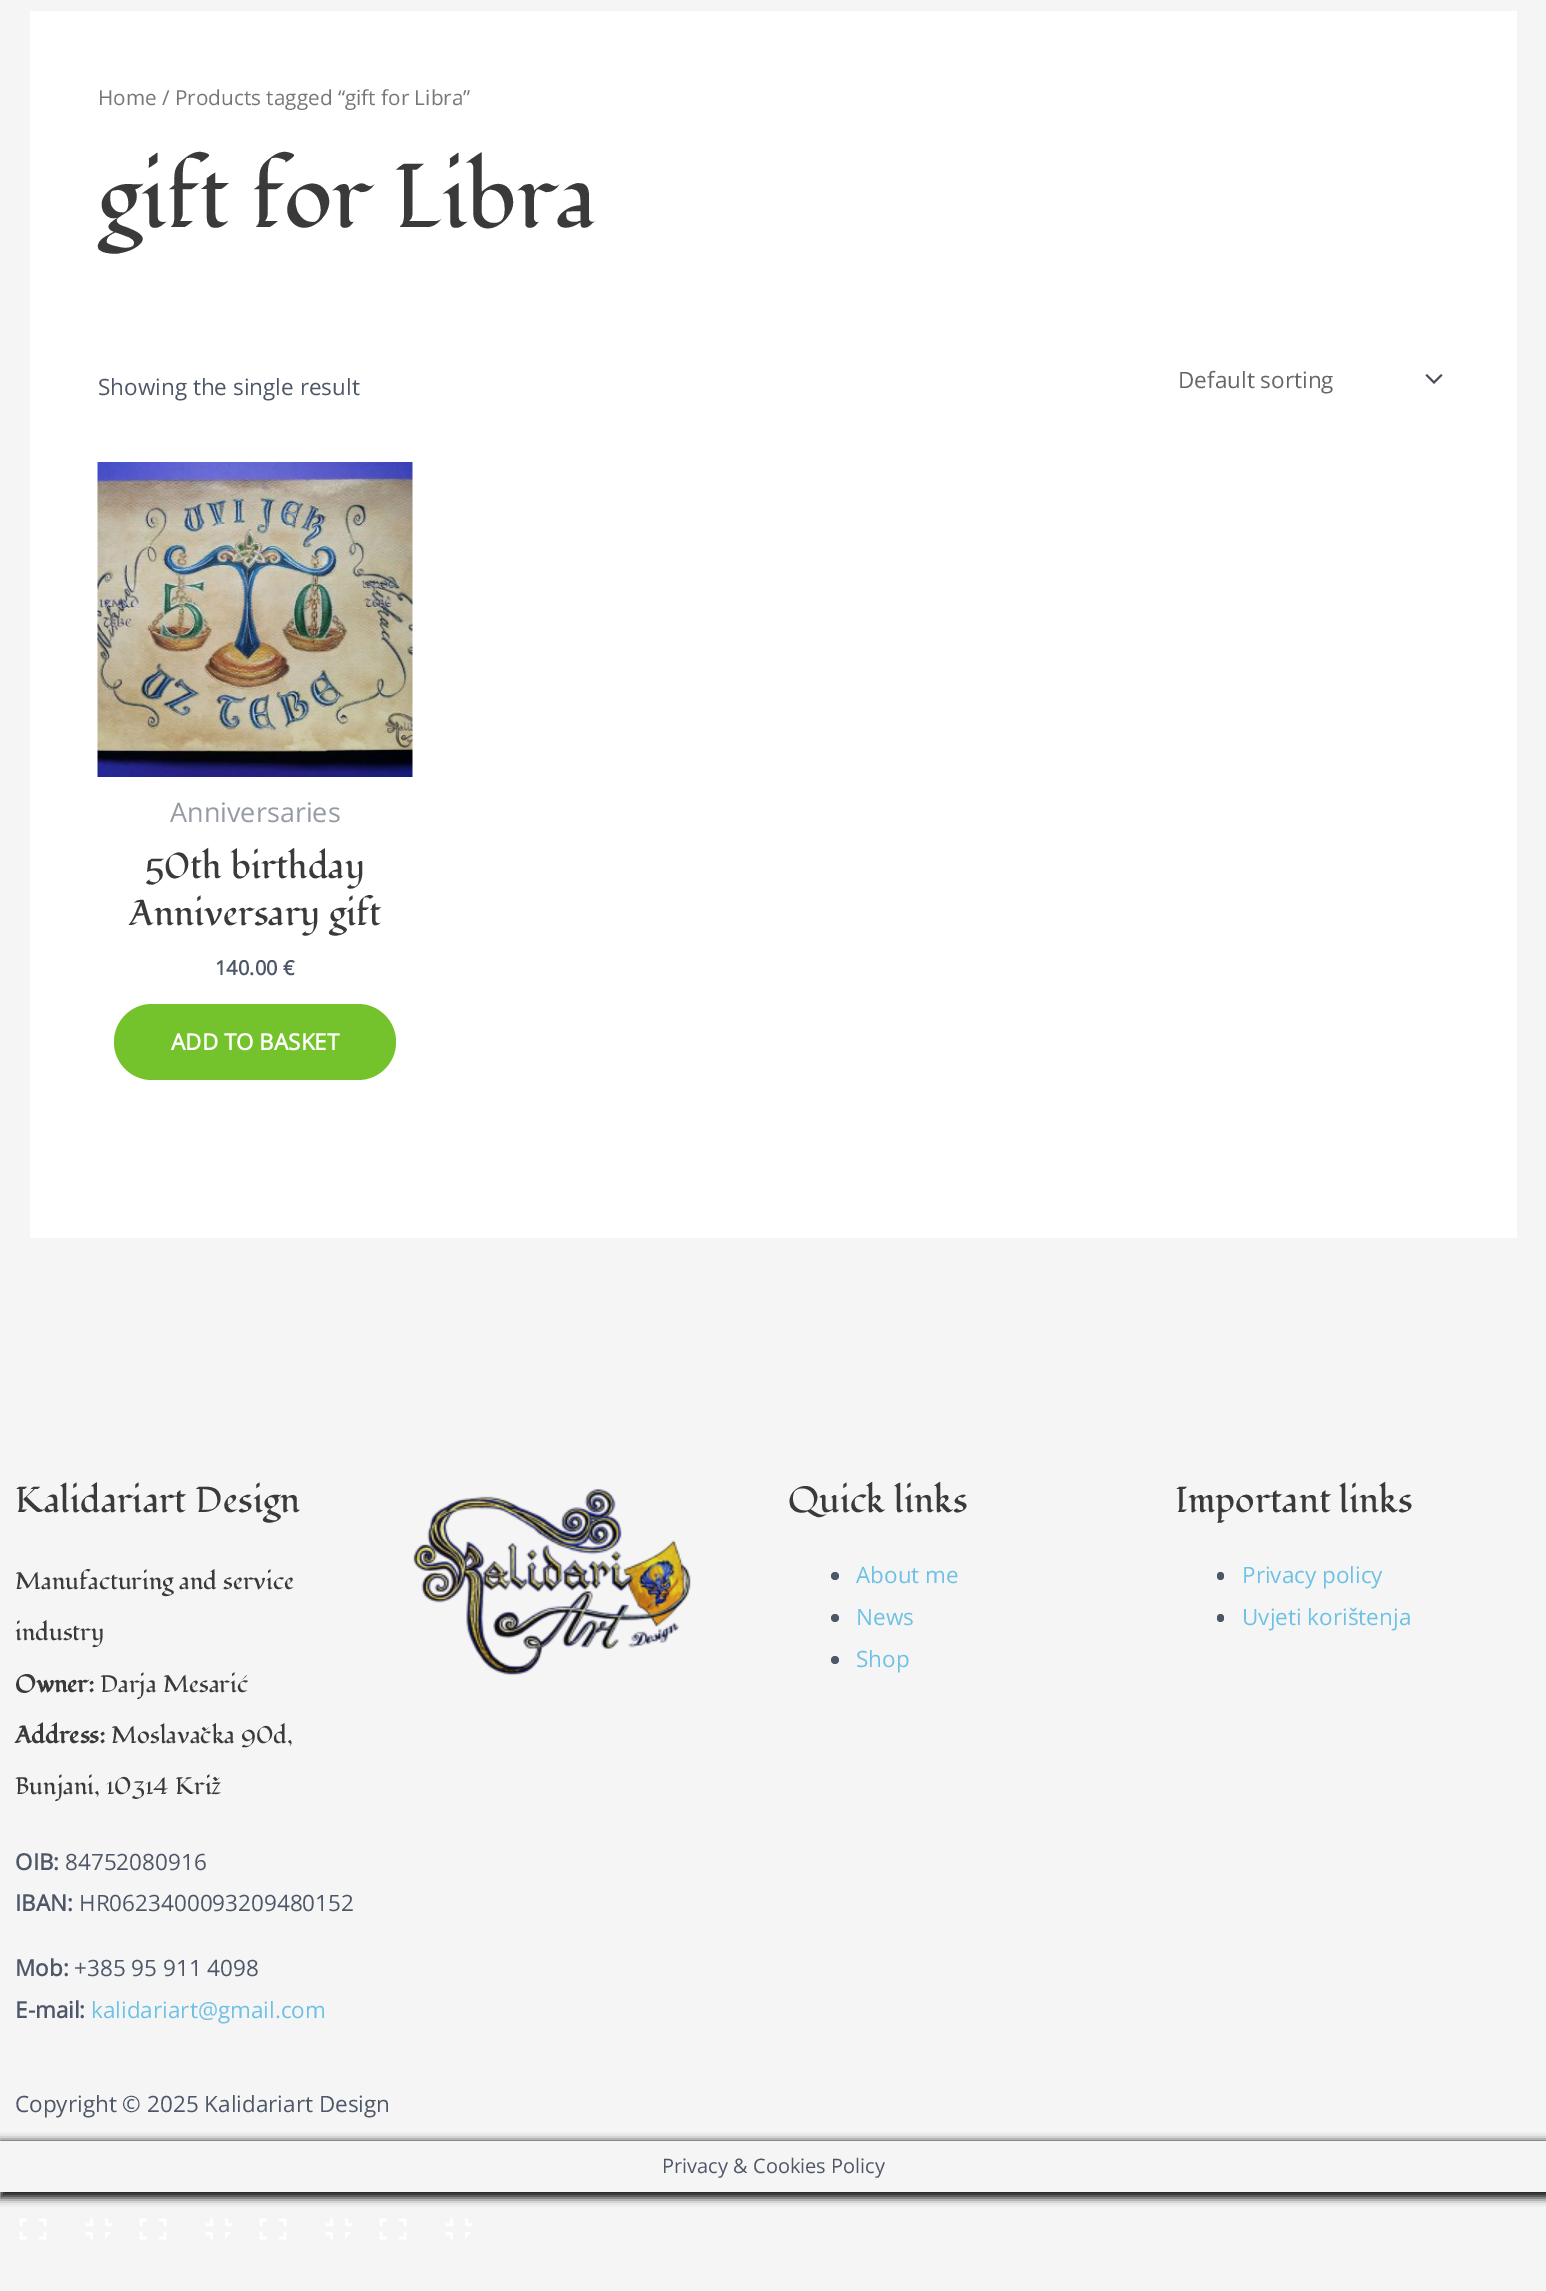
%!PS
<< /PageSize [1546 2291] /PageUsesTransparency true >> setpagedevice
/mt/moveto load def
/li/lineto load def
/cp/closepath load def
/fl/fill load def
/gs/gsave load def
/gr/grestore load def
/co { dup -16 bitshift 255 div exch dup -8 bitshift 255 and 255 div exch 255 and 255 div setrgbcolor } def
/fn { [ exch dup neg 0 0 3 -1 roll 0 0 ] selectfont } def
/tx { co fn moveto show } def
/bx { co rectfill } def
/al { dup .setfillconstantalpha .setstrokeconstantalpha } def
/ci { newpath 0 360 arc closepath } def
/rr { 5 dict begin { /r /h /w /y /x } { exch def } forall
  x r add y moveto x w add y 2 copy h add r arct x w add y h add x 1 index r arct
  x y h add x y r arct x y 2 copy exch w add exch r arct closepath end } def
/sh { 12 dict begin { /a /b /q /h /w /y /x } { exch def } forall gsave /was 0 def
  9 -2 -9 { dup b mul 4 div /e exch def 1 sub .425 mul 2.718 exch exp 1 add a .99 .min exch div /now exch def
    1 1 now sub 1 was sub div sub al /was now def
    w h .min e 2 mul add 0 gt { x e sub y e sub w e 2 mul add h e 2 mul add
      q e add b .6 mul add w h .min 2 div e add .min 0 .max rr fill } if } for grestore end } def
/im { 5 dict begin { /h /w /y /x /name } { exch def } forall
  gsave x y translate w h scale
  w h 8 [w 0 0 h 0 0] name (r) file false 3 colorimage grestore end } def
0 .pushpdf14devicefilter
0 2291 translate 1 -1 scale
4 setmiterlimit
0 0 1546 2291 16#F5F5F5 bx
30 11 1487 1227 16#FFFFFF bx
16#4B4F58 co
1425.5 375.5 mt 1434 384 li 1442.5 375.5 li 1441 374 li 1434 381 li 1427 374 li cp fl
(media/1.raw) 97 462 316 315 im
16#75C32C co
114 1004 282 76 38 rr fl
(media/2.raw) 413 1488 278 188 im
16#4E5768 co
835 1576 4 ci fl
835 1618 4 ci fl
835 1660 4 ci fl
1217 1572 7 8 3.5 rr fl
1217 1614 7 8 3.5 rr fl
gs
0 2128 mt 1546 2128 li 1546 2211 li 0 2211 li cp 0 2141 mt 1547 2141 li 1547 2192 li 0 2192 li cp eoclip newpath
16#161616 co
0 2141 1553 57 0 4 1 sh
gr
(media/3.raw) 19 2218 94 22 im
(media/3.raw) 139 2218 94 22 im
(media/3.raw) 259 2218 94 22 im
(media/4.raw) 379 2218 94 22 im
(Home / Products tagged “gift for Libra”) 98 105 /OpenSans-Regular 20.75 16#777777 tx
(gift for Libra) 98 227 /Fondamento-Regular 90 16#3A3A3A tx
(Showing the single result) 98 395 /OpenSans-Regular 22.5 16#4E5768 tx
(Default sorting) 1178 388 /OpenSans-Regular 22.5 16#666666 tx
(Anniversaries) 170 822 /OpenSans-Regular 27 16#959AA4 tx
(50th birthday) 145 878 /Fondamento-Regular 36 16#3A3A3A tx
(Anniversary gift) 129 925 /Fondamento-Regular 36 16#3A3A3A tx
(140.00 €) 215 975 /OpenSans-Bold 20 16#4E5768 tx
(ADD TO BASKET) 171 1050 /OpenSans-Bold 22.5 16#FFFFFF tx
(Kalidariart Design) 15 1512 /Fondamento-Regular 36 16#3A3A3A tx
(Manufacturing and service) 15 1589 /Fondamento-Regular 24 16#3A3A3A tx
(industry) 15 1640 /Fondamento-Regular 24 16#3A3A3A tx
(Owner:) 15 1692 /Fondamento-Bold 24 16#3A3A3A tx
(Darja Mesarić) 100 1692 /Fondamento-Regular 24 16#3A3A3A tx
(Address:) 15 1743 /Fondamento-Bold 24 16#3A3A3A tx
(Moslavačka 90d,) 111 1743 /Fondamento-Regular 24 16#3A3A3A tx
(Bunjani, 10314 Križ) 15 1794 /Fondamento-Regular 24 16#3A3A3A tx
(OIB:) 15 1870 /OpenSans-Bold 22.5 16#4E5768 tx
(84752080916) 65 1870 /OpenSans-Regular 22.5 16#4E5768 tx
(IBAN:) 15 1911 /OpenSans-Bold 22.5 16#4E5768 tx
(HR0623400093209480152) 79 1911 /OpenSans-Regular 22.5 16#4E5768 tx
(Mob:) 15 1976 /OpenSans-Bold 22.5 16#4E5768 tx
(+385 95 911 4098) 74 1976 /OpenSans-Regular 22.5 16#4E5768 tx
(E-mail:) 15 2018 /OpenSans-Bold 22.5 16#4E5768 tx
(kalidariart@gmail.com) 91 2018 /OpenSans-Regular 22.5 16#6EC1E4 tx
(Quick links) 788 1512 /Fondamento-Regular 36 16#3A3A3A tx
(About me) 856 1583 /OpenSans-Regular 22.5 16#6EC1E4 tx
(News) 856 1625 /OpenSans-Regular 22.5 16#6EC1E4 tx
(Shop) 856 1667 /OpenSans-Regular 22.5 16#6EC1E4 tx
(Important links) 1175 1512 /Fondamento-Regular 36 16#3A3A3A tx
(Privacy policy) 1242 1583 /OpenSans-Regular 22.5 16#6EC1E4 tx
(Uvjeti korištenja) 1242 1625 /OpenSans-Regular 22.5 16#6EC1E4 tx
(Copyright © 2025 Kalidariart Design) 15 2112 /OpenSans-Regular 22.5 16#4E5768 tx
(Privacy & Cookies Policy) 662 2173 /OpenSans-Regular 20 16#4E5768 tx
.poppdf14devicefilter showpage
